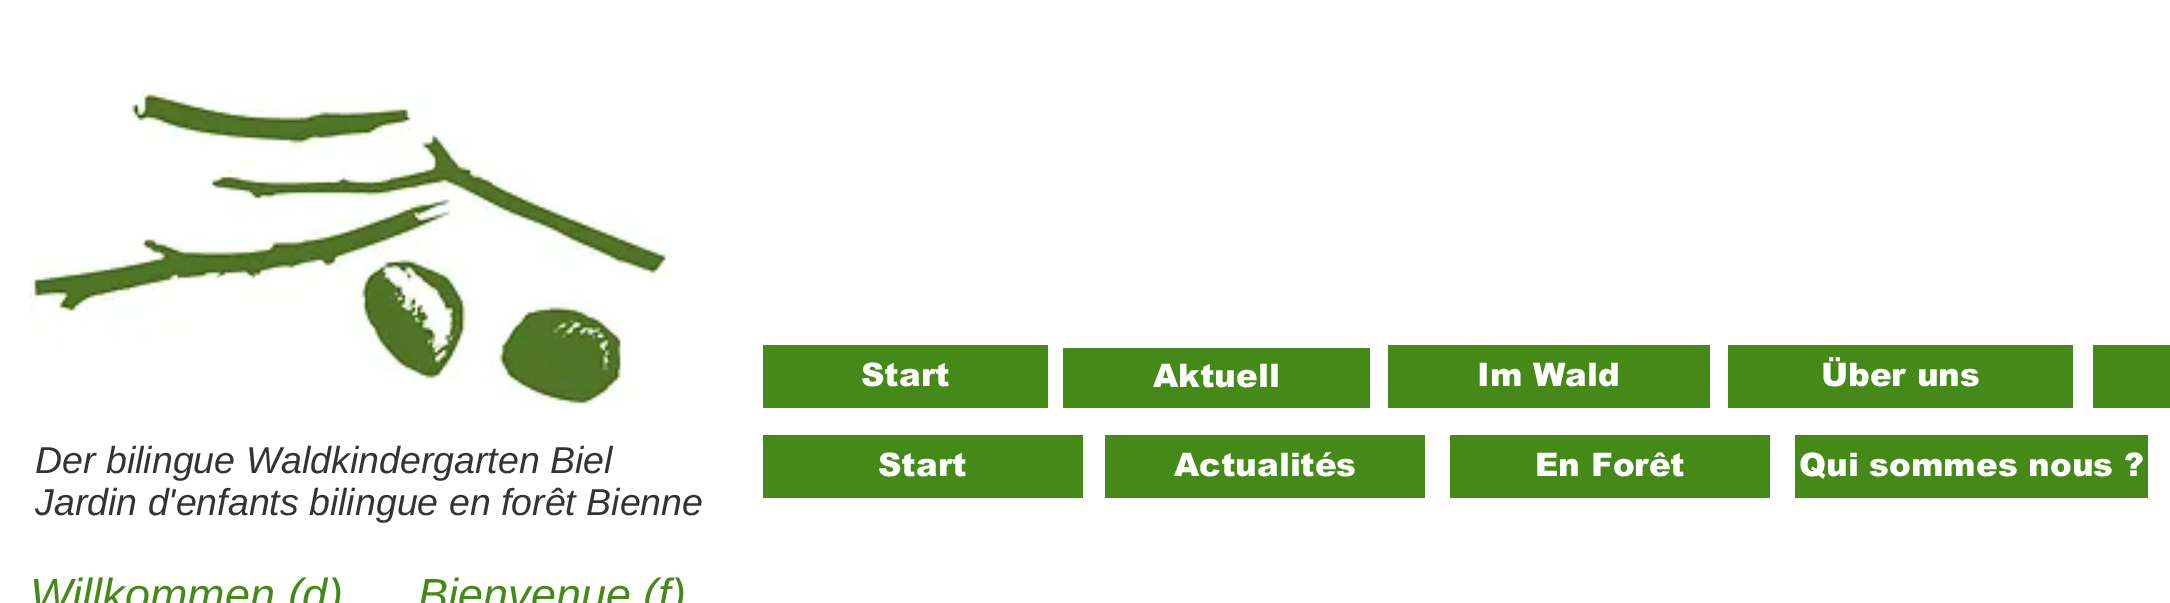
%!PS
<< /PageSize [2170 603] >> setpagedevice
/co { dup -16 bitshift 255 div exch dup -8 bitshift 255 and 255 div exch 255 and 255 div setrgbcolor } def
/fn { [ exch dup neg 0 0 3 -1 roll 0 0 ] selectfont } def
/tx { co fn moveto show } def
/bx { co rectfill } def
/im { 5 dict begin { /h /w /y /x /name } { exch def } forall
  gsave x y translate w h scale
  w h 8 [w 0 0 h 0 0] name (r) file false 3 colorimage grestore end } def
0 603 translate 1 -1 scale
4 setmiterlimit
0 0 2170 603 16#FFFFFF bx
763 345 285 63 16#458A19 bx
1063 348 307 60 16#458A19 bx
1388 345 322 63 16#458A19 bx
1728 345 345 63 16#458A19 bx
2093 345 77 63 16#458A19 bx
(media/1.raw) 30 89 641 318 im
763 435 320 63 16#458A19 bx
1105 435 320 63 16#458A19 bx
1450 435 320 63 16#458A19 bx
1795 435 353 63 16#458A19 bx
(Start) 861 386 /arial-Black 32.5 16#FFFFFF tx
(Aktuell) 1153 387 /arial-Black 32.5 16#FFFFFF tx
(Im Wald) 1477 386 /arial-Black 32.5 16#FFFFFF tx
(Über uns) 1821 386 /arial-Black 32.5 16#FFFFFF tx
(Der bilingue Waldkindergarten Biel) 35 473 /LiberationSans-Italic 37.5 16#333333 tx
(Jardin d'enfants bilingue en forêt Bienne) 35 515 /LiberationSans-Italic 37.5 16#333333 tx
(Willkommen \(d\)) 30 610 /LiberationSans-Italic 45 16#458A19 tx
(Bienvenue \(f\)) 418 610 /LiberationSans-Italic 45 16#458A19 tx
(Start) 878 476 /arial-Black 32.5 16#FFFFFF tx
(Actualités) 1174 476 /arial-Black 32.5 16#FFFFFF tx
(En Forêt) 1535 476 /arial-Black 32.5 16#FFFFFF tx
(Qui sommes nous ?) 1799 476 /arial-Black 32.5 16#FFFFFF tx
showpage
